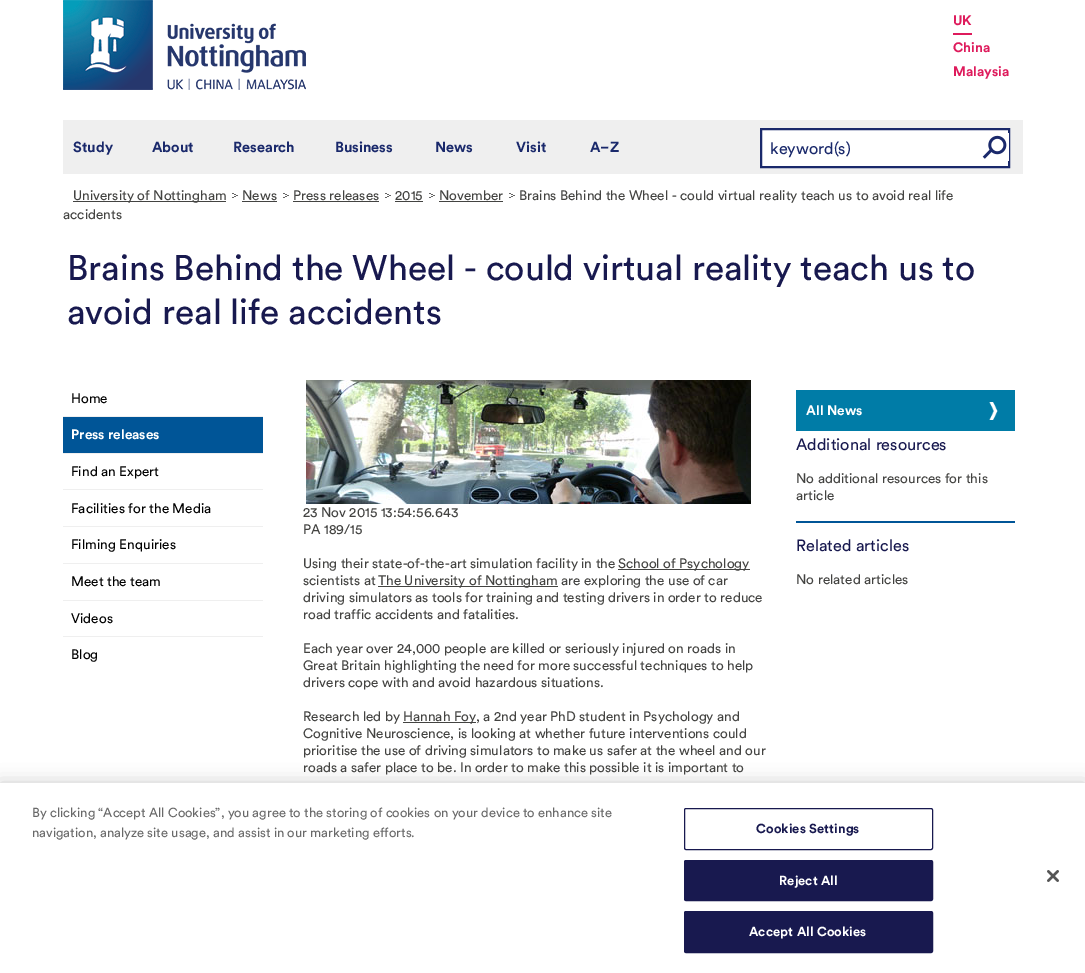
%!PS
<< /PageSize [1085 973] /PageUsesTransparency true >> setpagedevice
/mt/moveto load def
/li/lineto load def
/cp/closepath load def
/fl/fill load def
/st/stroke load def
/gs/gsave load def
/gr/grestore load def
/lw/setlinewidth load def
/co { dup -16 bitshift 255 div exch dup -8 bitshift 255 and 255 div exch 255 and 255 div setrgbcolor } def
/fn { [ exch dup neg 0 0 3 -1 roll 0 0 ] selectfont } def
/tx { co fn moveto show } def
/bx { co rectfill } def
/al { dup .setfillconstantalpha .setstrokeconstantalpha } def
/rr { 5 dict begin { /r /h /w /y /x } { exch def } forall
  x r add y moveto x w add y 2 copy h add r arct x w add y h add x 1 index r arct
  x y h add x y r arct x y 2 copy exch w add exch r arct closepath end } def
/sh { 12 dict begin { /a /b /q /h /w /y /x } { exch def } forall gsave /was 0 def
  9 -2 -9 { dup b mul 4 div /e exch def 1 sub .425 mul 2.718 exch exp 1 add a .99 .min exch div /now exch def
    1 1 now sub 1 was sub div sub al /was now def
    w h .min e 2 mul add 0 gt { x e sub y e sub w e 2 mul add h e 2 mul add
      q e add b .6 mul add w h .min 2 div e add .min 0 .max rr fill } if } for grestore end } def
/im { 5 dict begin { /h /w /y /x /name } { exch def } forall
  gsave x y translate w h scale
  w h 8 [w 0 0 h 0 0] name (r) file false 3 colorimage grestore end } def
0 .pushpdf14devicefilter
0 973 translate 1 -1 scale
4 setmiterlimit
0 0 1085 973 16#FFFFFF bx
(media/1.raw) 63 0 243 90 im
953 33 19 2 16#DE1B5C bx
63 120 960 54 16#EFEFEF bx
16#FFFFFF co
761 129 mt 1009 129 li 1009 167 li 761 167 li cp gs fl gr
16#1A296B co
2 lw
st
1008 133 1 28 16#FFFFFF bx
(media/2.raw) 982 135 25 24 im
73 201 153 1 16#434341 bx
(media/3.raw) 232 193 6 5 im
242 201 35 1 16#434341 bx
(media/3.raw) 283 193 6 5 im
293 201 86 1 16#434341 bx
(media/3.raw) 385 193 6 5 im
395 201 28 1 16#434341 bx
(media/3.raw) 429 193 6 5 im
439 201 64 1 16#434341 bx
(media/3.raw) 509 193 6 5 im
63 416 200 1 16#EFEFEF bx
63 453 200 1 16#EFEFEF bx
63 417 200 36 16#005597 bx
63 489 200 1 16#EFEFEF bx
63 526 200 1 16#EFEFEF bx
63 563 200 1 16#EFEFEF bx
63 600 200 1 16#EFEFEF bx
63 636 200 1 16#EFEFEF bx
(media/4.raw) 306 380 445 124 im
618 569 132 1 16#434341 bx
378 586 180 1 16#434341 bx
403 722 73 1 16#434341 bx
796 390 219 41 16#007CA7 bx
(media/5.raw) 989 402 9 18 im
796 521 219 2 16#005597 bx
16#000000 co
0 783 1085 190 0 9 .2 sh
0 783 1085 190 16#FFFFFF bx
16#18194F co
1 lw
684.5 808.5 248 41 1.5 rr st
684.5 860.5 248 40 1.5 rr gs fl gr
st
684.5 911.5 248 41 1.5 rr gs fl gr
st
(media/6.raw) 1047 870 12 12 im
(UK) 953 25 /Circular-Bold 13.6 16#DE1B5C tx
(China) 953 52 /Circular-Bold 13.6 16#DE1B5C tx
(Malaysia) 953 76 /Circular-Bold 13.6 16#DE1B5C tx
(Study) 73 152 /Circular-Bold 14.5 16#1A296B tx
(About) 152 152 /Circular-Bold 14.5 16#1A296B tx
(Research) 233 152 /Circular-Bold 14.5 16#1A296B tx
(Business) 335 152 /Circular-Bold 14.5 16#1A296B tx
(News) 435 152 /Circular-Bold 14.5 16#1A296B tx
(Visit) 516 152 /Circular-Bold 14.5 16#1A296B tx
(A–Z) 590 152 /Circular-Bold 14.5 16#1A296B tx
(keyword\(s\)) 770 154 /Circular-Regular 16.25 16#1A296B tx
(University of Nottingham) 73 200 /Circular-Regular 13.6 16#434341 tx
(News) 242 200 /Circular-Regular 13.6 16#434341 tx
(Press releases) 293 200 /Circular-Regular 13.6 16#434341 tx
(2015) 395 200 /Circular-Regular 13.6 16#434341 tx
(November) 439 200 /Circular-Regular 13.6 16#434341 tx
(Brains Behind the Wheel - could virtual reality teach us to avoid real life) 519 200 /Circular-Regular 13.6 16#434341 tx
(accidents) 63 219 /Circular-Regular 13.6 16#434341 tx
(Brains Behind the Wheel - could virtual reality teach us to) 67 280 /Circular-Regular 35.35 16#18194F tx
(avoid real life accidents) 67 324 /Circular-Regular 35.35 16#18194F tx
(Home) 71 403 /Circular-Regular 13.6 16#000000 tx
(Press releases) 71 439 /Circular-Bold 13.6 16#FFFFFF tx
(Find an Expert) 71 476 /Circular-Regular 13.6 16#000000 tx
(Facilities for the Media) 71 513 /Circular-Regular 13.6 16#000000 tx
(Filming Enquiries) 71 549 /Circular-Regular 13.6 16#000000 tx
(Meet the team) 71 586 /Circular-Regular 13.6 16#000000 tx
(Videos) 71 623 /Circular-Regular 13.6 16#000000 tx
(Blog) 71 659 /Circular-Regular 13.6 16#000000 tx
(23 Nov 2015 13:54:56.643) 303 517 /Circular-Regular 13.6 16#434341 tx
(PA 189/15) 303 534 /Circular-Regular 13.6 16#434341 tx
(Using their state-of-the-art simulation facility in the) 303 568 /Circular-Regular 13.6 16#434341 tx
(School of Psychology) 618 568 /Circular-Regular 13.6 16#434341 tx
(scientists at) 303 585 /Circular-Regular 13.6 16#434341 tx
(The University of Nottingham are exploring the use of car) 378 585 /Circular-Regular 13.6 16#434341 tx
(driving simulators as tools for training and testing drivers in order to reduce) 303 602 /Circular-Regular 13.6 16#434341 tx
(road traffic accidents and fatalities.) 303 619 /Circular-Regular 13.6 16#434341 tx
(Each year over 24,000 people are killed or seriously injured on roads in) 303 653 /Circular-Regular 13.6 16#434341 tx
(Great Britain highlighting the need for more successful techniques to help) 303 670 /Circular-Regular 13.6 16#434341 tx
(drivers cope with and avoid hazardous situations.) 303 687 /Circular-Regular 13.6 16#434341 tx
(Research led by) 303 721 /Circular-Regular 13.6 16#434341 tx
(Hannah Foy, a 2nd year PhD student in Psychology and) 403 721 /Circular-Regular 13.6 16#434341 tx
(Cognitive Neuroscience, is looking at whether future interventions could) 303 738 /Circular-Regular 13.6 16#434341 tx
(prioritise the use of driving simulators to make us safer at the wheel and our) 303 755 /Circular-Regular 13.6 16#434341 tx
(roads a safer place to be. In order to make this possible it is important to) 303 772 /Circular-Regular 13.6 16#434341 tx
(All News) 806 415 /Circular-Bold 13.6 16#FFFFFF tx
(Additional resources) 796 450 /Circular-Regular 16.25 16#18194F tx
(No additional resources for this) 796 483 /Circular-Regular 13.6 16#434341 tx
(article) 796 500 /Circular-Regular 13.6 16#434341 tx
(Related articles) 796 551 /Circular-Regular 16.25 16#18194F tx
(No related articles) 796 584 /Circular-Regular 13.6 16#434341 tx
(By clicking “Accept All Cookies”, you agree to the storing of cookies on your device to enhance site) 32 817 /Circular-Regular 13 16#696969 tx
(navigation, analyze site usage, and assist in our marketing efforts.) 32 837 /Circular-Regular 13 16#696969 tx
/Circular-Bold 13 fn
16#18194F co
756 833 mt .1 0 (Cookies Settings) ashow
16#FFFFFF co
779 885 mt .1 0 (Reject All) ashow
749 936 mt .1 0 (Accept All Cookies) ashow
.poppdf14devicefilter showpage
